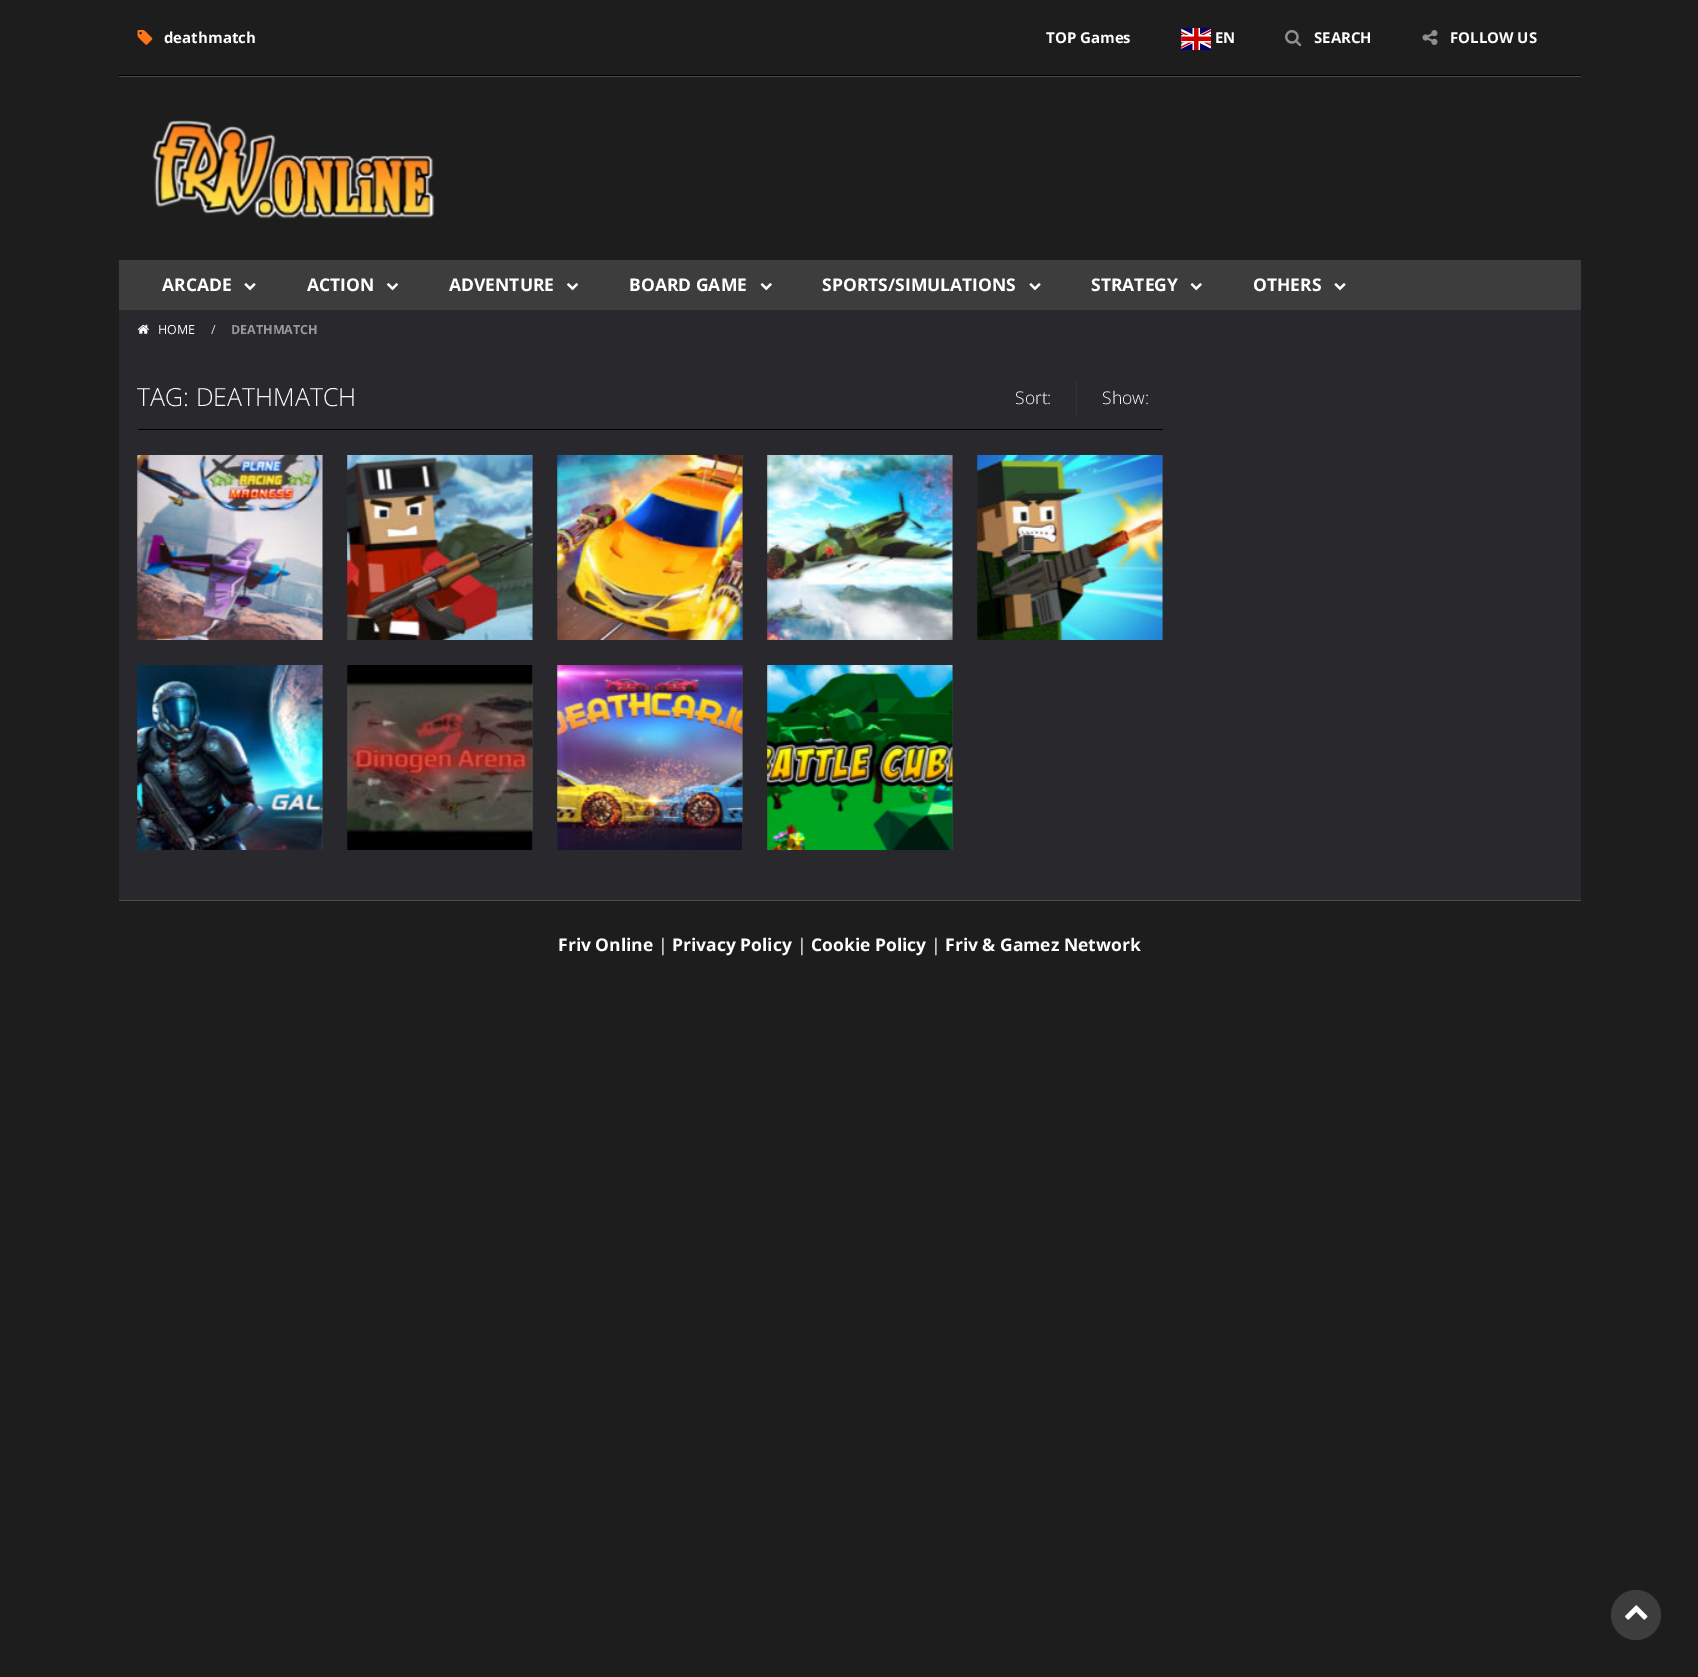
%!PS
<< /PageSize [1698 1677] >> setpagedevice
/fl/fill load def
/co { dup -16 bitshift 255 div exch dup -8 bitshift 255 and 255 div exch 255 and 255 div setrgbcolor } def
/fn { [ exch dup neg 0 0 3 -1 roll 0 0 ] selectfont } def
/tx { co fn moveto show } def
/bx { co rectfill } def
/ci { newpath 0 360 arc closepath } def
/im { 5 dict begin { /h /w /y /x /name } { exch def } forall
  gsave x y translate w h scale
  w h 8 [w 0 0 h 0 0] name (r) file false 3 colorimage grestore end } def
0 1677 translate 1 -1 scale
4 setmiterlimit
0 0 1698 1677 16#1D1D1D bx
119 75 1462 1 16#000000 bx
(media/1.raw) 137 30 16 15 im
(media/2.raw) 1181 28 30 22 im
(media/3.raw) 1285 30 17 17 im
(media/4.raw) 1422 30 16 15 im
119 76 1462 1 16#4D4D4D bx
(media/5.raw) 152 120 283 99 im
119 260 1462 50 16#3D3D3D bx
(media/6.raw) 244 283 12 8 im
(media/7.raw) 386 283 13 8 im
(media/7.raw) 566 283 13 8 im
(media/8.raw) 760 283 12 8 im
(media/6.raw) 1029 283 12 8 im
(media/8.raw) 1190 283 12 8 im
(media/6.raw) 1334 283 12 8 im
119 310 1462 590 16#29292D bx
(media/9.raw) 137 324 12 10 im
138 429 1025 1 16#000000 bx
1076 379 1 37 16#333333 bx
138 455 185 185 16#3D3D3D bx
(media/10.raw) 137 455 186 185 im
348 455 185 185 16#3D3D3D bx
(media/11.raw) 347 455 186 185 im
558 455 185 185 16#3D3D3D bx
(media/12.raw) 557 455 186 185 im
768 455 185 185 16#3D3D3D bx
(media/13.raw) 767 455 186 185 im
978 455 185 185 16#3D3D3D bx
(media/14.raw) 977 455 186 185 im
138 665 185 185 16#3D3D3D bx
(media/15.raw) 137 665 186 185 im
348 665 185 185 16#3D3D3D bx
(media/16.raw) 347 665 186 185 im
558 665 185 185 16#3D3D3D bx
(media/17.raw) 557 665 186 185 im
768 665 185 185 16#3D3D3D bx
(media/18.raw) 767 665 186 185 im
119 900 1462 1 16#4D4D4D bx
16#3D3D3D co
1636 1615 25 ci fl
(media/19.raw) 1625 1605 23 15 im
(deathmatch) 164 43 /OpenSans-Bold 15 16#FFFFFF tx
(TOP Games) 1046 43 /OpenSans-Bold 15 16#FFFFFF tx
(EN) 1215 43 /OpenSans-Bold 15 16#FFFFFF tx
(SEARCH) 1314 43 /OpenSans-Bold 15 16#FFFFFF tx
(FOLLOW US) 1450 43 /OpenSans-Bold 15 16#FFFFFF tx
(ARCADE) 162 291 /OpenSans-Bold 17.5 16#FFFFFF tx
(ACTION) 307 291 /OpenSans-Bold 17.5 16#FFFFFF tx
(ADVENTURE) 449 291 /OpenSans-Bold 17.5 16#FFFFFF tx
(BOARD GAME) 629 291 /OpenSans-Bold 17.5 16#FFFFFF tx
(SPORTS/SIMULATIONS) 822 291 /OpenSans-Bold 17.5 16#FFFFFF tx
(STRATEGY) 1091 291 /OpenSans-Bold 17.5 16#FFFFFF tx
(OTHERS) 1253 291 /OpenSans-Bold 17.5 16#FFFFFF tx
(HOME) 158 334 /OpenSans-Regular 12.5 16#FFFFFF tx
(/) 211 334 /OpenSans-Regular 12.5 16#DDDDDD tx
(DEATHMATCH) 231 334 /OpenSans-Bold 12.5 16#999999 tx
(TAG: DEATHMATCH) 137 406 /OpenSans-Light 25 16#FFFFFF tx
(Sort:) 1015 404 /OpenSans-Light 17.5 16#FFFFFF tx
(Show:) 1102 404 /OpenSans-Light 17.5 16#FFFFFF tx
(Friv Online) 558 951 /OpenSans-Bold 17.5 16#FFFFFF tx
(|) 658 951 /OpenSans-Regular 17.5 16#FFFFFF tx
(Privacy Policy) 672 951 /OpenSans-Bold 17.5 16#FFFFFF tx
(|) 797 951 /OpenSans-Regular 17.5 16#FFFFFF tx
(Cookie Policy) 811 951 /OpenSans-Bold 17.5 16#FFFFFF tx
(|) 931 951 /OpenSans-Regular 17.5 16#FFFFFF tx
(Friv & Gamez Network) 945 951 /OpenSans-Bold 17.5 16#FFFFFF tx
showpage
